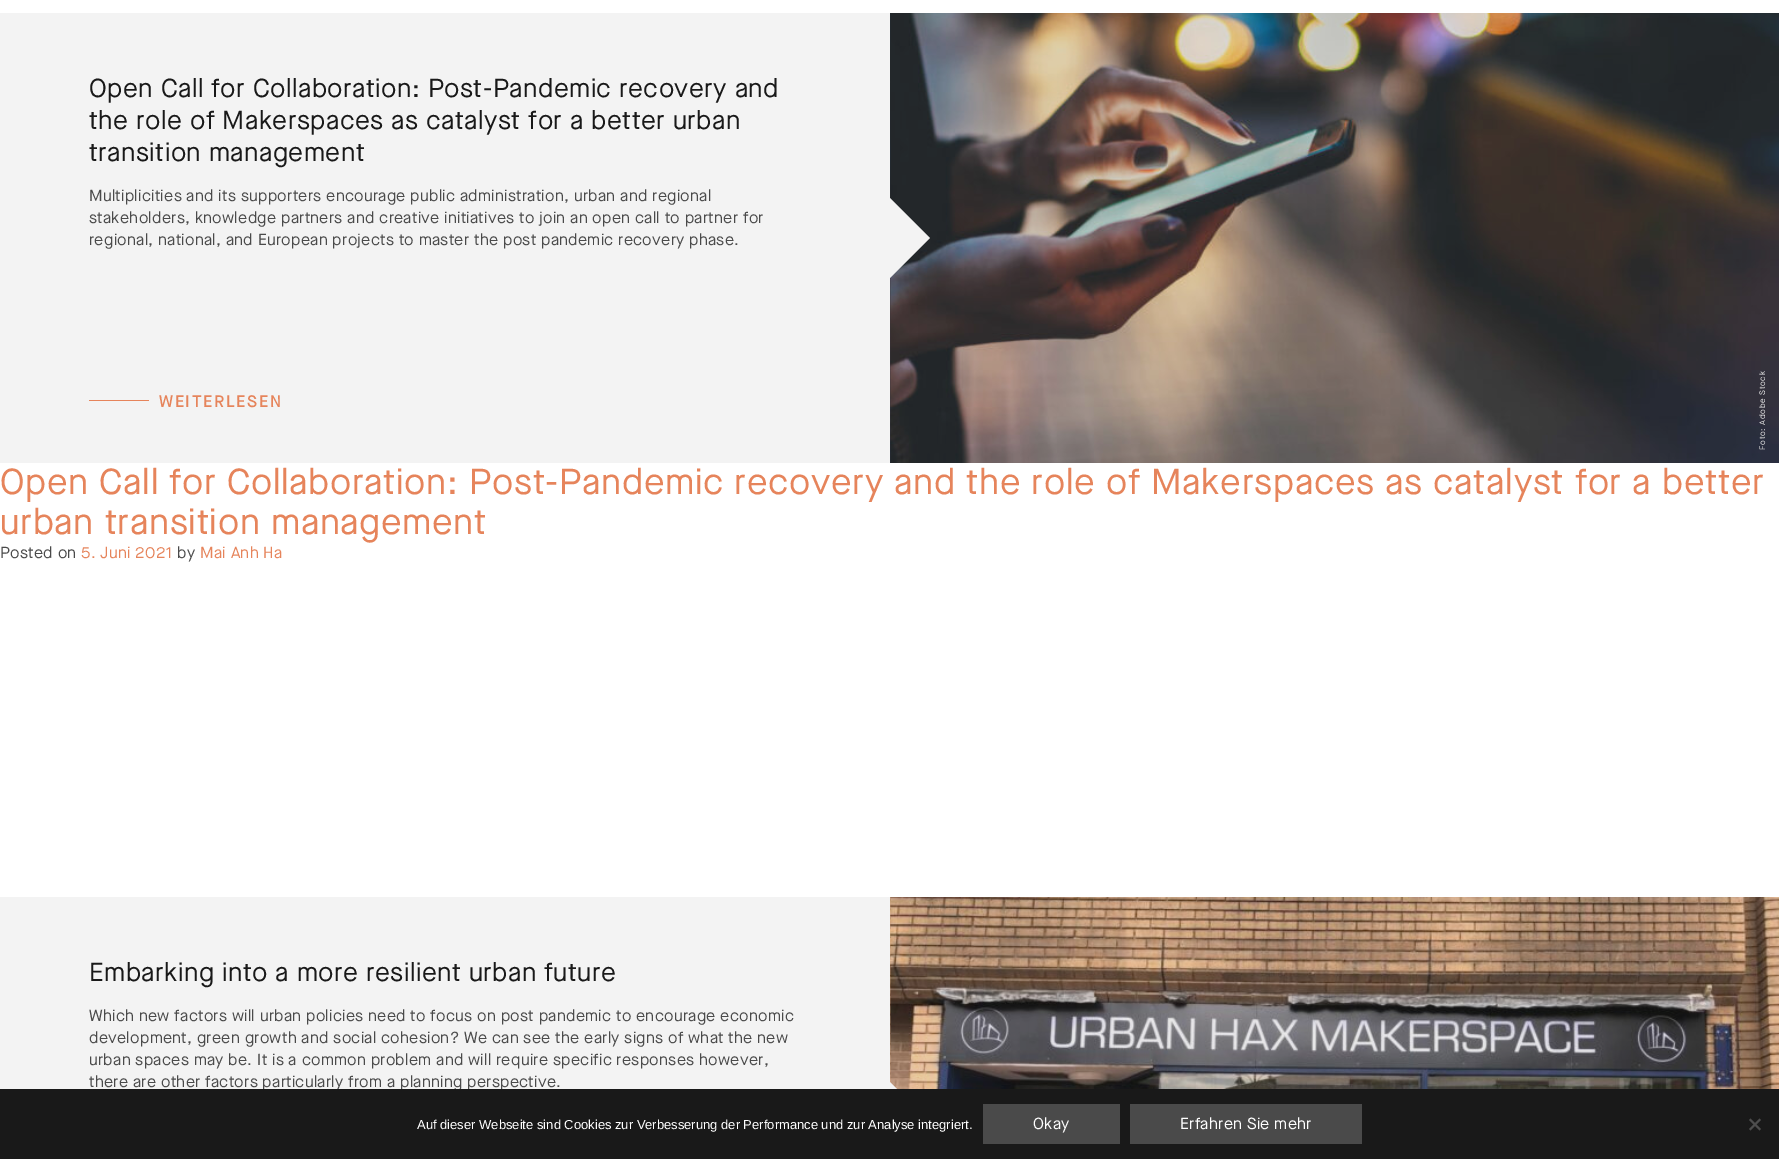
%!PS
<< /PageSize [1779 1159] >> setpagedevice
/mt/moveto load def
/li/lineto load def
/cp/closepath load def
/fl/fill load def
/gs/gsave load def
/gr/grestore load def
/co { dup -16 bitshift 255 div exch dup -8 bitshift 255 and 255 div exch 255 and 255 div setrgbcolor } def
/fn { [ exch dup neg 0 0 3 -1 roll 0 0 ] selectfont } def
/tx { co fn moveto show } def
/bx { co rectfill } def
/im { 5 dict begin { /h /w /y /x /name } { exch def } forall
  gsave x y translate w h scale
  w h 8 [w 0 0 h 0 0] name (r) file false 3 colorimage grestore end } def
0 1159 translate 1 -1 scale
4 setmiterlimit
0 0 1779 1159 16#FFFFFF bx
0 13 890 450 16#F3F3F3 bx
89 400 60 1 16#E6845B bx
(media/1.raw) 890 13 889 450 im
16#F3F3F3 co
890 278 mt 890 198 li 930 238 li cp fl
0 897 890 192 16#F3F3F3 bx
(media/2.raw) 890 897 889 192 im
890 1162 mt 890 1082 li 930 1122 li cp fl
/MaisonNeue-Regular 26 fn
16#191919 co
89 97 mt .5 0 (Open Call for Collaboration: Post-Pandemic recovery and) ashow
89 129 mt .5 0 (the role of Makerspaces as catalyst for a better urban) ashow
89 161 mt .5 0 (transition management) ashow
/MaisonNeue-Regular 16 fn
16#4A4A4A co
89 201 mt .3 0 (Multiplicities and its supporters encourage public administration, urban and regional) ashow
89 223 mt .3 0 (stakeholders, knowledge partners and creative initiatives to join an open call to partner for) ashow
89 245 mt .3 0 (regional, national, and European projects to master the post pandemic recovery phase.) ashow
/MaisonNeue-Bold 16 fn
16#E6845B co
159 407 mt 2 0 (WEITERLESEN) ashow
/MaisonNeue-Regular 8 fn
16#E8E8E8 co
gs 1765 450 translate -90 rotate 0 0 mt .7 0 (Foto: Adobe Stock) ashow gr
/MaisonNeue-Regular 36 fn
16#E6845B co
0 494 mt .7 0 (Open Call for Collaboration: Post-Pandemic recovery and the role of Makerspaces as catalyst for a better) ashow
0 534 mt .7 0 (urban transition management) ashow
/MaisonNeue-Regular 16 fn
16#4A4A4A co
0 558 mt .3 0 (Posted on) ashow
16#E6845B co
81 558 mt .3 0 (5. Juni 2021) ashow
16#4A4A4A co
177 558 mt .3 0 (by) ashow
16#E6845B co
200 558 mt .3 0 (Mai Anh Ha) ashow
/MaisonNeue-Regular 26 fn
16#191919 co
89 981 mt .5 0 (Embarking into a more resilient urban future) ashow
/MaisonNeue-Regular 16 fn
16#4A4A4A co
89 1021 mt .3 0 (Which new factors will urban policies need to focus on post pandemic to encourage economic) ashow
89 1043 mt .3 0 (development, green growth and social cohesion? We can see the early signs of what the new) ashow
89 1065 mt .3 0 (urban spaces may be. It is a common problem and will require specific responses however,) ashow
89 1087 mt .3 0 (there are other factors particularly from a planning perspective.) ashow
0 1089 1779 70 16#191919 bx
(Auf dieser Webseite sind Cookies zur Verbesserung der Performance und zur Analyse integriert.) 417 1129 /LiberationSans-Regular 13 16#FFFFFF tx
983 1104 137 40 16#4A4A4A bx
/MaisonNeue-Regular 16 fn
16#FFFFFF co
1033 1129 mt .3 0 (Okay) ashow
1130 1104 232 40 16#4A4A4A bx
16#FFFFFF co
1180 1129 mt .3 0 (Erfahren Sie mehr) ashow
16#4D4D4D co
1759.5 1118.5 mt 1761 1120 li 1750.5 1130.5 li 1749 1129 li cp fl
1749 1120 mt 1750.5 1118.5 li 1761 1129 li 1759.5 1130.5 li cp fl
showpage
